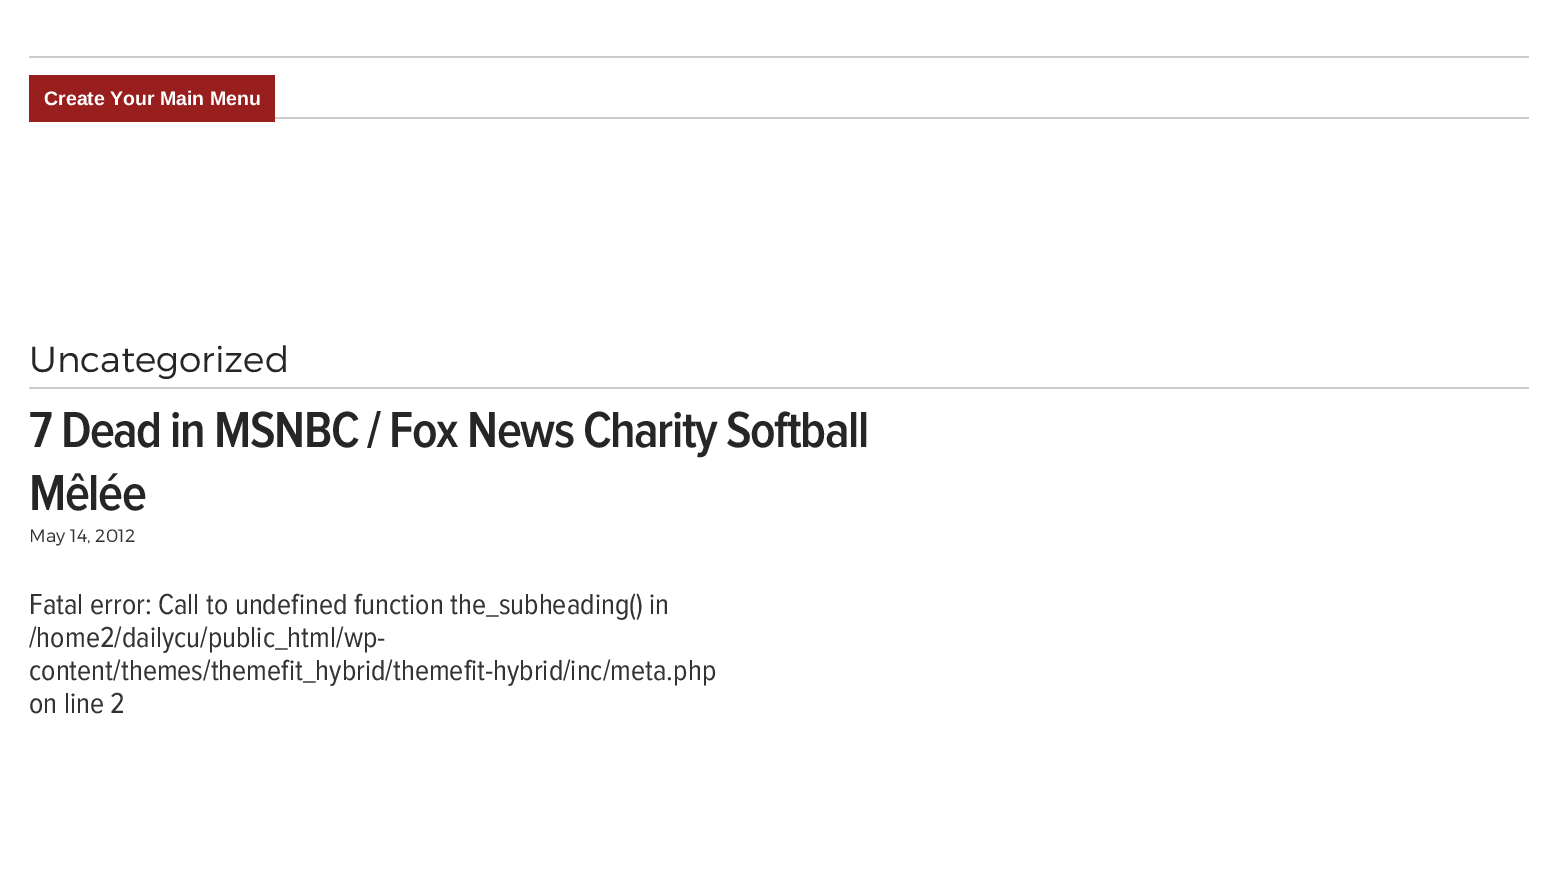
%!PS
<< /PageSize [1556 888] >> setpagedevice
/mt/moveto load def
/co { dup -16 bitshift 255 div exch dup -8 bitshift 255 and 255 div exch 255 and 255 div setrgbcolor } def
/fn { [ exch dup neg 0 0 3 -1 roll 0 0 ] selectfont } def
/tx { co fn moveto show } def
/bx { co rectfill } def
0 888 translate 1 -1 scale
4 setmiterlimit
0 0 1556 888 16#FFFFFF bx
29 56 1500 2 16#CCCCCC bx
275 117 1254 2 16#CCCCCC bx
29 75 246 47 16#991F1F bx
29 387 1500 2 16#CCCCCC bx
(Create Your Main Menu) 44 105 /LiberationSans-Bold 19.5 16#FFFFFF tx
(Uncategorized) 29 372 /Montserrat-Light 36 16#262626 tx
/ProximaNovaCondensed-SemiBold 52.5 fn
29 447 mt -1.5 0 (7 Dead in MSNBC / Fox News Charity Softball) ashow
29 510 mt -1.5 0 (Mêlée) ashow
(May 14, 2012) 29 542 /Montserrat-Light 18 16#333333 tx
(Fatal error: Call to undefined function the_subheading\(\) in) 29 614 /ProximaNovaCondensed-Regular 30 16#333333 tx
(/home2/dailycu/public_html/wp-) 29 647 /ProximaNovaCondensed-Regular 30 16#333333 tx
(content/themes/themefit_hybrid/themefit-hybrid/inc/meta.php) 29 680 /ProximaNovaCondensed-Regular 30 16#333333 tx
(on line 2) 29 713 /ProximaNovaCondensed-Regular 30 16#333333 tx
showpage
